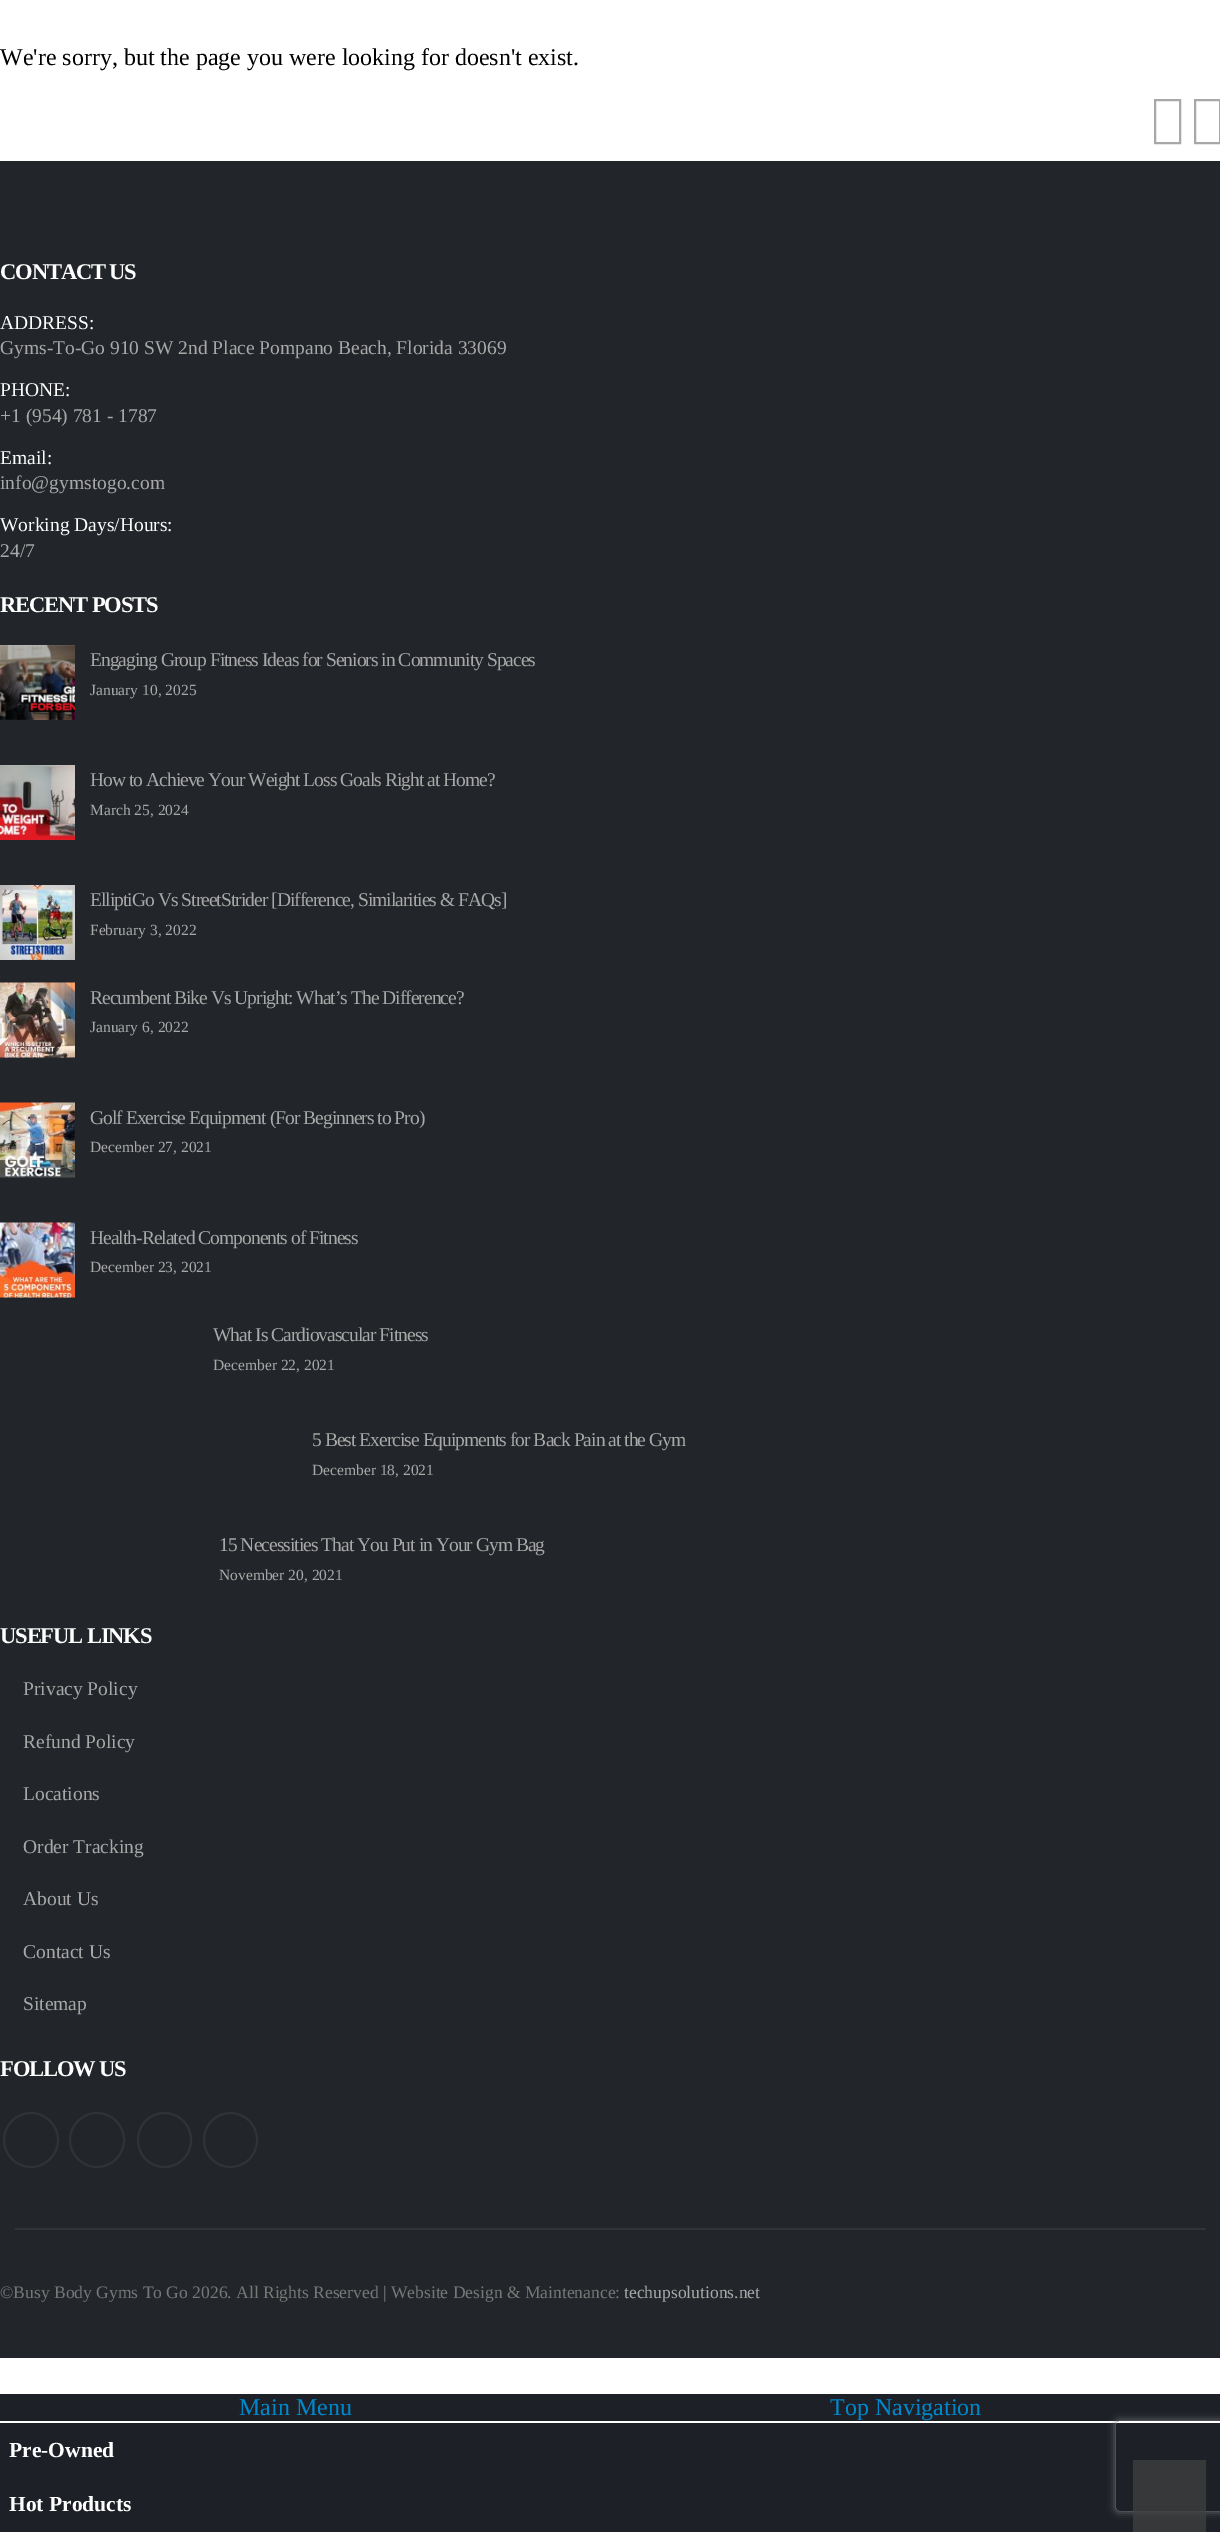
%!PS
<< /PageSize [1220 2532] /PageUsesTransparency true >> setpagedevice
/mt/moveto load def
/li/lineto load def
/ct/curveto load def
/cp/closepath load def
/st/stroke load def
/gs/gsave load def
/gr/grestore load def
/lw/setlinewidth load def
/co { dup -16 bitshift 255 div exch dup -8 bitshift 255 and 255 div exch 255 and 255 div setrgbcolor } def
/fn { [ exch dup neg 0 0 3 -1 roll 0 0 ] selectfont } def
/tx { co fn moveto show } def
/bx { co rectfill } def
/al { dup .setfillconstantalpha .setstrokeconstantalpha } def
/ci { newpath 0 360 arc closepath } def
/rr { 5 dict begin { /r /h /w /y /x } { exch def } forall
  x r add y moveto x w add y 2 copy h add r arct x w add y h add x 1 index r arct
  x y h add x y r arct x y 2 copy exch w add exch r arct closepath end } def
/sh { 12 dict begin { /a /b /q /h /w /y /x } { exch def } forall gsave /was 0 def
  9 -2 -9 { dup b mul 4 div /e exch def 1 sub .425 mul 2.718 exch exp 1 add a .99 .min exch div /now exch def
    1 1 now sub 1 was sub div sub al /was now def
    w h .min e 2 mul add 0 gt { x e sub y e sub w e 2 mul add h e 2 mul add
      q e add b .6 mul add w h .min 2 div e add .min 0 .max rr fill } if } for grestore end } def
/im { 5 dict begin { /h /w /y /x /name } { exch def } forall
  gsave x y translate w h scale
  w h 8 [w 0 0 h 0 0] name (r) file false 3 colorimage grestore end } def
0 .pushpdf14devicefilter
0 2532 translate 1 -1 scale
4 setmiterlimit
0 0 1220 2532 16#FFFFFF bx
0 161 1220 2197 16#222529 bx
16#A8A8A8 co
2 lw
1155 100 25 43 rectstroke
1195 100 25 43 rectstroke
(media/1.raw) 0 645 75 75 im
(media/2.raw) 0 765 75 75 im
(media/3.raw) 0 885 75 75 im
(media/4.raw) 0 982 75 76 im
(media/5.raw) 0 1102 75 76 im
(media/6.raw) 0 1222 75 76 im
16#2F3236 co
31 2140 27 ci st
97 2140 27 ci st
138 2113 53 54 26.5 rr st
204 2113 53 54 26.5 rr st
15 2228 1191 2 16#313438 bx
0 2394 1220 138 16#1D2127 bx
0 2421 1220 2 16#FFFFFF bx
gs
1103 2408 mt 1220 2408 li 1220 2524 li 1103 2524 li cp 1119 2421 mt 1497 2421 li 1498.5 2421 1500 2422.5 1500 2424 ct 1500 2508 li 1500 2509.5 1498.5 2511 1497 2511 ct 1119 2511 li 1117.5 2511 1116 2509.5 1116 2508 ct 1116 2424 li 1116 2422.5 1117.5 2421 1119 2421 ct cp eoclip newpath
16#808080 co
1116 2421 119 90 3 4 1 sh
gr
0.75 al
1133 2460 73 72 16#404040 bx
1 al
(We're sorry, but the page you were looking for doesn't exist.) 0 65 /LiberationSerif-Regular 24 16#000000 tx
/LiberationSerif-Bold 22.5 fn
16#FFFFFF co
0 279 mt -1.1 0 (CONTACT US) ashow
(ADDRESS:) 0 329 /LiberationSerif-Regular 19.5 16#FFFFFF tx
(Gyms-To-Go 910 SW 2nd Place Pompano Beach, Florida 33069) 0 354 /LiberationSerif-Regular 19.5 16#A8A8A8 tx
(PHONE:) 0 396 /LiberationSerif-Regular 19.5 16#FFFFFF tx
(+1 \(954\) 781 - 1787) 0 422 /LiberationSerif-Regular 19.5 16#A8A8A8 tx
(Email:) 0 464 /LiberationSerif-Regular 19.5 16#FFFFFF tx
(info@gymstogo.com) 0 489 /LiberationSerif-Regular 19.5 16#A8A8A8 tx
(Working Days/Hours:) 0 531 /LiberationSerif-Regular 19.5 16#FFFFFF tx
(24/7) 0 557 /LiberationSerif-Regular 19.5 16#A8A8A8 tx
/LiberationSerif-Bold 22.5 fn
16#FFFFFF co
0 612 mt -1.1 0 (RECENT POSTS) ashow
/LiberationSerif-Regular 19.5 fn
16#A8A8A8 co
90 666 mt -.98 0 (Engaging Group Fitness Ideas for Seniors in Community Spaces) ashow
(January 10, 2025) 90 695 /LiberationSerif-Regular 15.5 16#A8A8A8 tx
/LiberationSerif-Regular 19.5 fn
90 786 mt -.98 0 (How to Achieve Your Weight Loss Goals Right at Home?) ashow
(March 25, 2024) 90 815 /LiberationSerif-Regular 15.5 16#A8A8A8 tx
/LiberationSerif-Regular 19.5 fn
90 906 mt -.98 0 (ElliptiGo Vs StreetStrider [Difference, Similarities & FAQs]) ashow
(February 3, 2022) 90 935 /LiberationSerif-Regular 15.5 16#A8A8A8 tx
/LiberationSerif-Regular 19.5 fn
90 1004 mt -.98 0 (Recumbent Bike Vs Upright: What’s The Difference?) ashow
(January 6, 2022) 90 1032 /LiberationSerif-Regular 15.5 16#A8A8A8 tx
/LiberationSerif-Regular 19.5 fn
90 1124 mt -.98 0 (Golf Exercise Equipment \(For Beginners to Pro\)) ashow
(December 27, 2021) 90 1152 /LiberationSerif-Regular 15.5 16#A8A8A8 tx
/LiberationSerif-Regular 19.5 fn
90 1244 mt -.98 0 (Health-Related Components of Fitness) ashow
(December 23, 2021) 90 1272 /LiberationSerif-Regular 15.5 16#A8A8A8 tx
/LiberationSerif-Regular 19.5 fn
213 1341 mt -.98 0 (What Is Cardiovascular Fitness) ashow
(December 22, 2021) 213 1370 /LiberationSerif-Regular 15.5 16#A8A8A8 tx
/LiberationSerif-Regular 19.5 fn
312 1446 mt -.98 0 (5 Best Exercise Equipments for Back Pain at the Gym) ashow
(December 18, 2021) 312 1475 /LiberationSerif-Regular 15.5 16#A8A8A8 tx
/LiberationSerif-Regular 19.5 fn
219 1551 mt -.98 0 (15 Necessities That You Put in Your Gym Bag) ashow
(November 20, 2021) 219 1580 /LiberationSerif-Regular 15.5 16#A8A8A8 tx
/LiberationSerif-Bold 22.5 fn
16#FFFFFF co
0 1643 mt -1.1 0 (USEFUL LINKS) ashow
(Privacy Policy) 23 1695 /LiberationSerif-Regular 19.5 16#A8A8A8 tx
(Refund Policy) 23 1748 /LiberationSerif-Regular 19.5 16#A8A8A8 tx
(Locations) 23 1800 /LiberationSerif-Regular 19.5 16#A8A8A8 tx
(Order Tracking) 23 1853 /LiberationSerif-Regular 19.5 16#A8A8A8 tx
(About Us) 23 1905 /LiberationSerif-Regular 19.5 16#A8A8A8 tx
(Contact Us) 23 1958 /LiberationSerif-Regular 19.5 16#A8A8A8 tx
(Sitemap) 23 2010 /LiberationSerif-Regular 19.5 16#A8A8A8 tx
/LiberationSerif-Bold 22.5 fn
16#FFFFFF co
0 2076 mt -1.1 0 (FOLLOW US) ashow
(©Busy Body Gyms To Go 2026. All Rights Reserved | Website Design & Maintenance:) 0 2298 /LiberationSerif-Regular 17.55 16#777777 tx
(techupsolutions.net) 624 2298 /LiberationSerif-Regular 17.55 16#A8A8A8 tx
(Main Menu) 239 2415 /LiberationSerif-Regular 24 16#0088CC tx
(Top Navigation) 830 2415 /LiberationSerif-Regular 24 16#0088CC tx
(Pre-Owned) 9 2457 /LiberationSerif-Bold 21.5 16#FFFFFF tx
(Hot Products) 9 2511 /LiberationSerif-Bold 21.5 16#FFFFFF tx
.poppdf14devicefilter showpage
